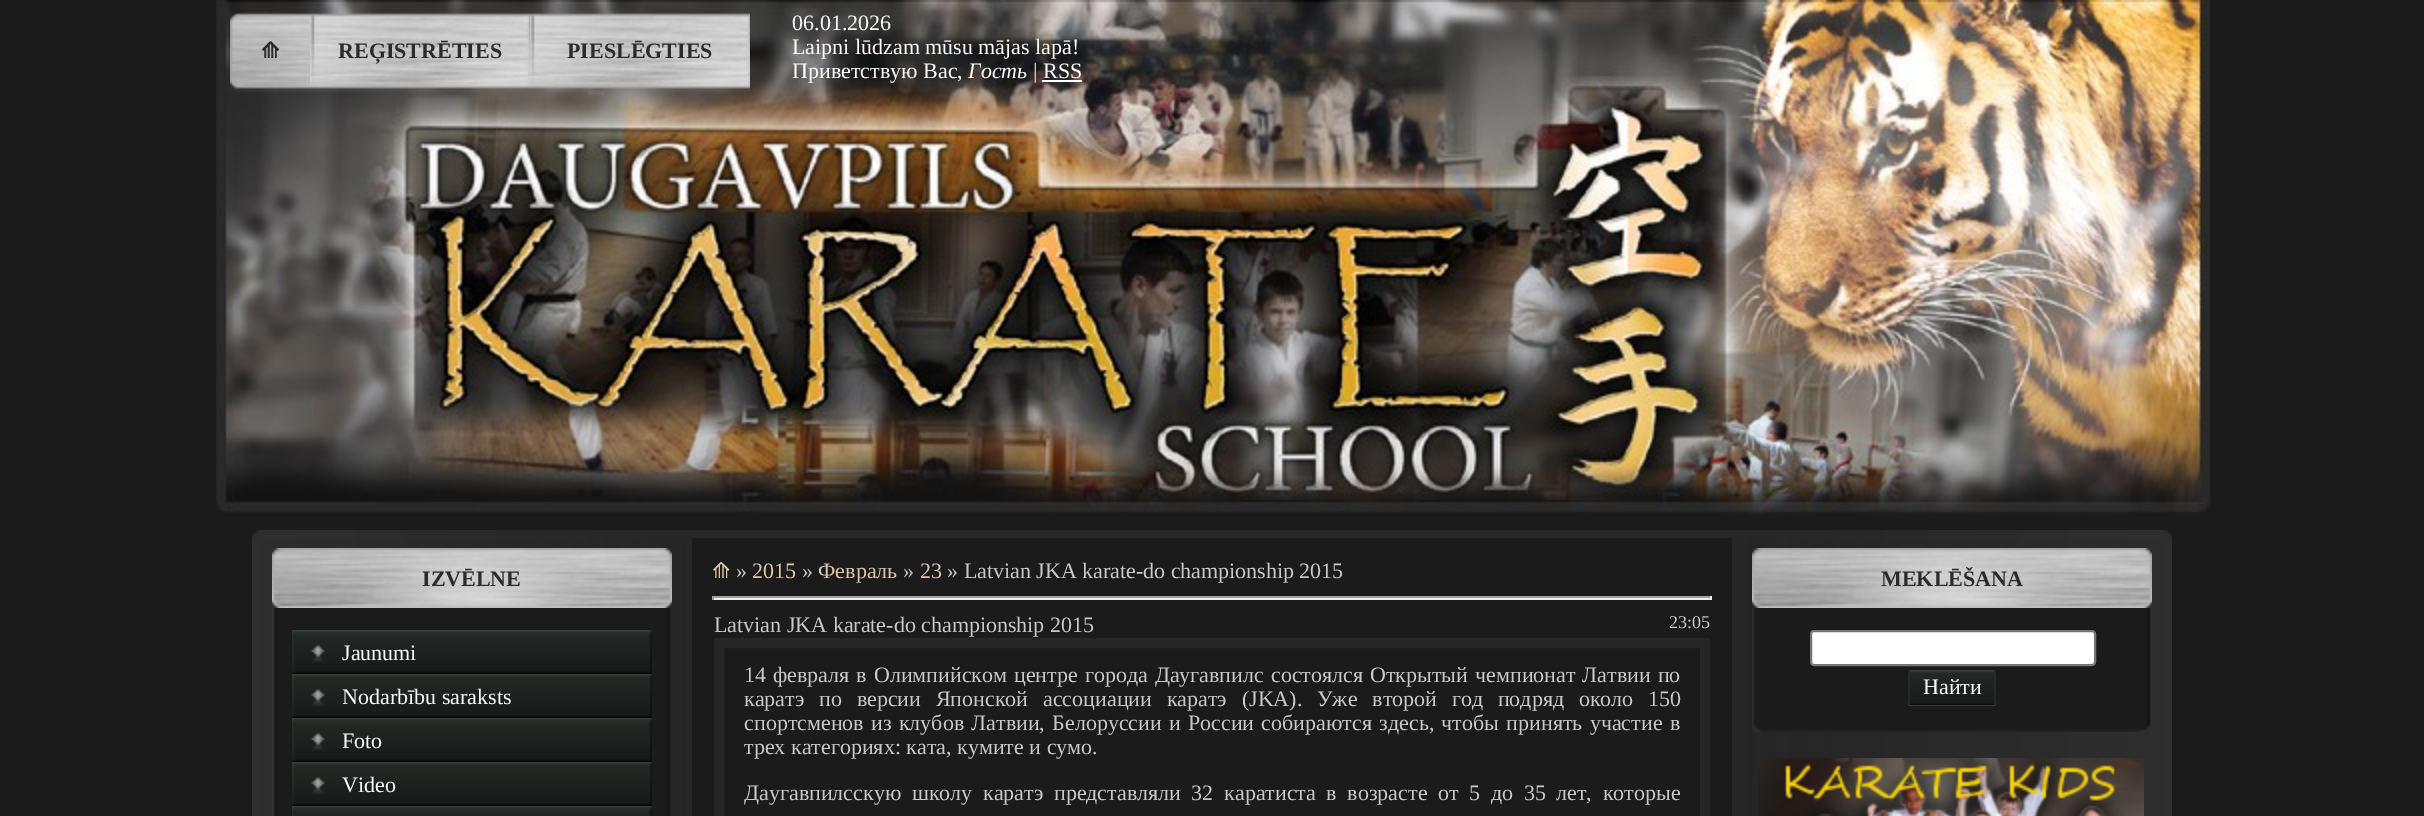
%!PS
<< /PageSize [2424 816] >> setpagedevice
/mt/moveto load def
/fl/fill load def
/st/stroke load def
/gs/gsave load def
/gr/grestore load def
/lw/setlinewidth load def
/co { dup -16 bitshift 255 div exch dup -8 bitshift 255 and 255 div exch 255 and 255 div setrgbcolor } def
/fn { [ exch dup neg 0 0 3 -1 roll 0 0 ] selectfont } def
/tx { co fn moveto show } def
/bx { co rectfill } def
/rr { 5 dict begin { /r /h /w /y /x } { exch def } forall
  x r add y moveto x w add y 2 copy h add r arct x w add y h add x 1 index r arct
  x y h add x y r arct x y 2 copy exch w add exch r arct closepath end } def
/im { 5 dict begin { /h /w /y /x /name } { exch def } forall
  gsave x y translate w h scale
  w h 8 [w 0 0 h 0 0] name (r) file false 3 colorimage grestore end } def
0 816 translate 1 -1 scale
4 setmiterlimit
0 0 2424 816 16#1B1B1B bx
(media/1.raw) 216 0 1995 515 im
(media/2.raw) 230 12 80 80 im
(media/3.raw) 310 12 220 80 im
(media/4.raw) 530 13 220 79 im
1042 80 40 2 16#FFFFFF bx
(media/5.raw) 252 530 1920 8 im
(media/6.raw) 252 538 1920 278 im
(media/7.raw) 272 548 400 60 im
(media/8.raw) 272 608 399 208 im
(media/9.raw) 292 630 360 44 im
(media/9.raw) 292 674 360 44 im
(media/9.raw) 292 718 360 44 im
(media/9.raw) 292 762 360 44 im
(media/10.raw) 292 806 360 10 im
692 538 1040 278 16#1B1B1B bx
712 596 1000 2 16#9F9F9F bx
1710 596 2 4 16#EEEEEE bx
712 598 1000 2 16#EEEEEE bx
712 596 2 4 16#9F9F9F bx
16#262626 co
10 lw
719 643 986 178 rectstroke
(media/11.raw) 1752 548 400 60 im
(media/12.raw) 1752 608 399 114 im
16#FFFFFF co
1811 631 284 34 3 rr gs fl gr
16#767676 co
2 lw
st
(media/13.raw) 1910 670 84 36 im
1994 670 2 36 16#252927 bx
1908 670 2 36 16#252927 bx
(media/14.raw) 1752 722 399 10 im
(media/15.raw) 1758 758 386 58 im
(⟰) 261 58 /DejaVuSans-Bold 22 16#2B2B2B tx
(REĢISTRĒTIES) 338 58 /LiberationSerif-Bold 22 16#2B2B2B tx
(PIESLĒGTIES) 567 58 /LiberationSerif-Bold 22 16#2B2B2B tx
(06.01.2026) 792 30 /LiberationSerif-Regular 22 16#FFFFFF tx
(Laipni lūdzam mūsu mājas lapā!) 792 54 /LiberationSerif-Regular 22 16#FFFFFF tx
(Приветствую Вас,) 792 78 /LiberationSerif-Regular 22 16#FFFFFF tx
(Гость) 968 78 /LiberationSerif-Italic 22 16#FFFFFF tx
(| RSS) 1033 78 /LiberationSerif-Regular 22 16#FFFFFF tx
(IZVĒLNE) 422 586 /LiberationSerif-Bold 22 16#2B2B2B tx
(Jaunumi) 342 660 /LiberationSerif-Regular 22 16#FFFFFF tx
(Nodarbību saraksts) 342 704 /LiberationSerif-Regular 22 16#FFFFFF tx
(Foto) 342 748 /LiberationSerif-Regular 22 16#FFFFFF tx
(Video) 342 792 /LiberationSerif-Regular 22 16#FFFFFF tx
(⟰) 712 578 /DejaVuSans-Regular 22 16#DCC7AB tx
(») 736 578 /LiberationSerif-Regular 22 16#C9C9C9 tx
(2015) 752 578 /LiberationSerif-Regular 22 16#DCC7AB tx
(») 802 578 /LiberationSerif-Regular 22 16#C9C9C9 tx
(Февраль) 818 578 /LiberationSerif-Regular 22 16#DCC7AB tx
(») 903 578 /LiberationSerif-Regular 22 16#C9C9C9 tx
(23) 920 578 /LiberationSerif-Regular 22 16#DCC7AB tx
(» Latvian JKA karate-do championship 2015) 947 578 /LiberationSerif-Regular 22 16#C9C9C9 tx
(Latvian JKA karate-do championship 2015) 714 632 /LiberationSerif-Regular 22 16#C9C9C9 tx
(23:05) 1669 628 /LiberationSerif-Regular 18 16#C9C9C9 tx
/LiberationSerif-Regular 22 fn
744 682 mt 1.5 0 32 (14 февраля в Олимпийском центре города Даугавпилс состоялся Открытый чемпионат Латвии по) widthshow
744 706 mt 9.25 0 32 (каратэ по версии Японской ассоциации каратэ \(JKA\). Уже второй год подряд около 150) widthshow
744 730 mt 1.75 0 32 (спортсменов из клубов Латвии, Белоруссии и России собираются здесь, чтобы принять участие в) widthshow
(трех категориях: ката, кумите и сумо.) 744 754 /LiberationSerif-Regular 22 16#C9C9C9 tx
744 800 mt 5.1 0 32 (Даугавпилсскую школу каратэ представляли 32 каратиста в возрасте от 5 до 35 лет, которые) widthshow
(MEKLĒŠANA) 1881 586 /LiberationSerif-Bold 22 16#2B2B2B tx
(Найти) 1923 694 /LiberationSerif-Regular 22 16#FFFFFF tx
showpage
